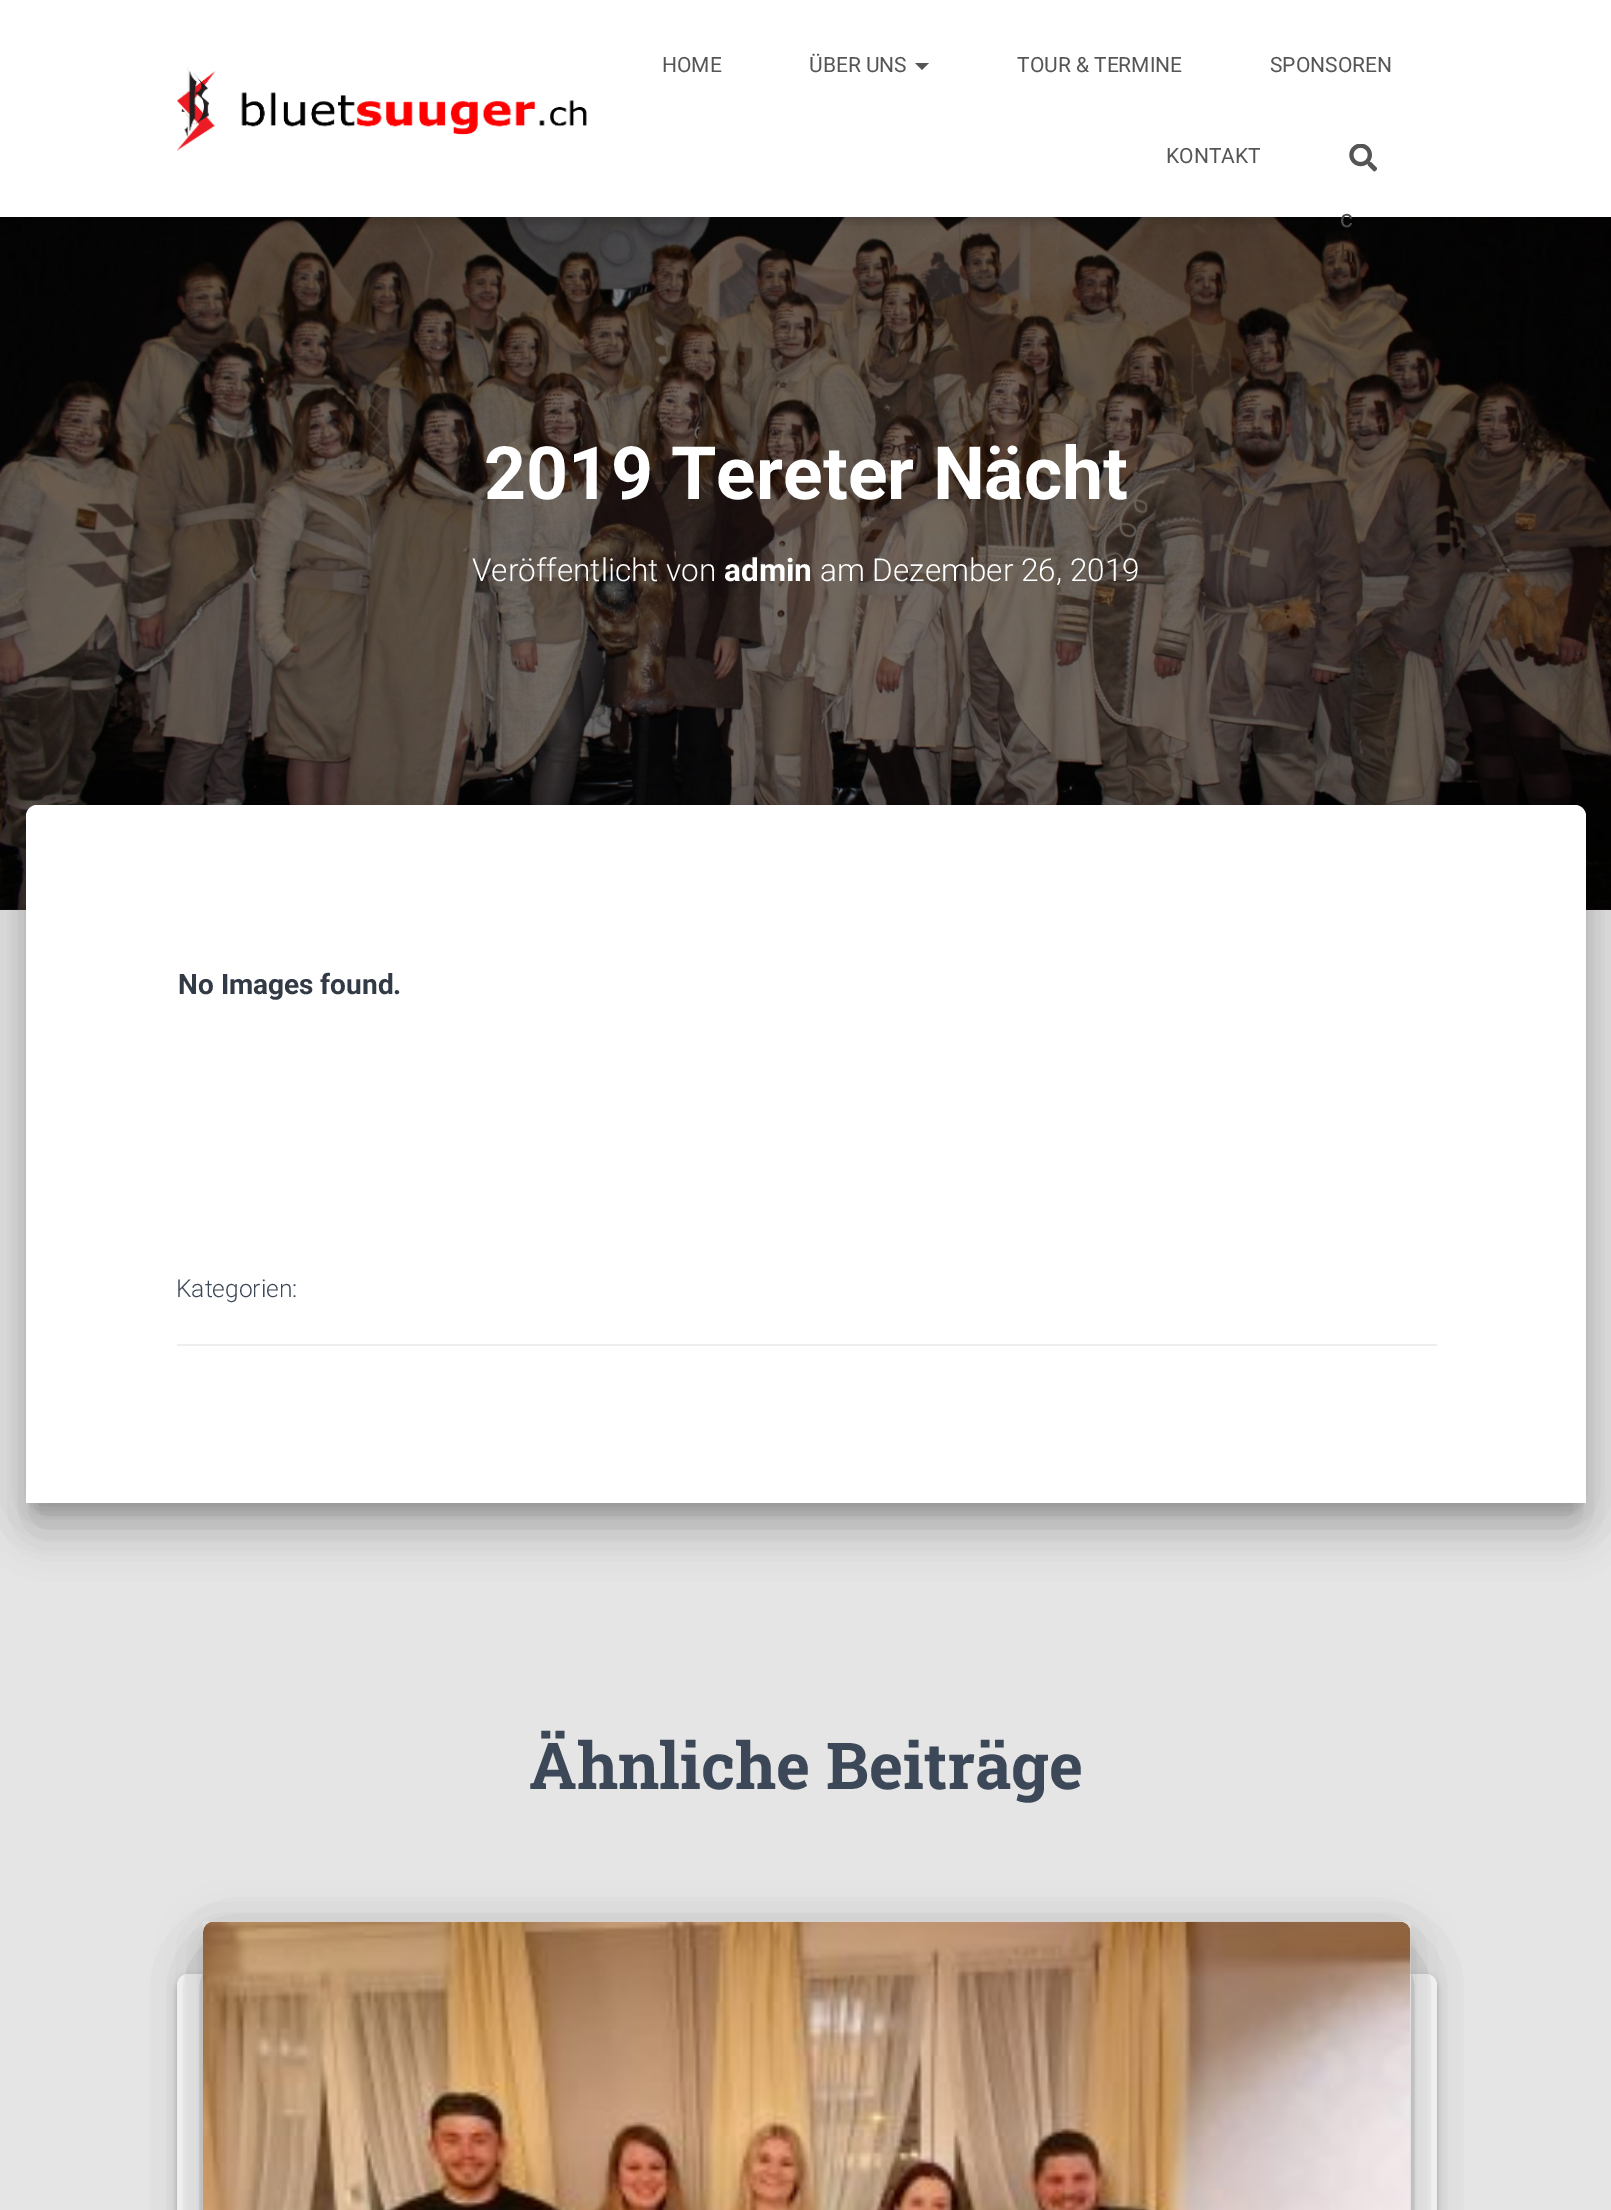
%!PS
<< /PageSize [1611 2210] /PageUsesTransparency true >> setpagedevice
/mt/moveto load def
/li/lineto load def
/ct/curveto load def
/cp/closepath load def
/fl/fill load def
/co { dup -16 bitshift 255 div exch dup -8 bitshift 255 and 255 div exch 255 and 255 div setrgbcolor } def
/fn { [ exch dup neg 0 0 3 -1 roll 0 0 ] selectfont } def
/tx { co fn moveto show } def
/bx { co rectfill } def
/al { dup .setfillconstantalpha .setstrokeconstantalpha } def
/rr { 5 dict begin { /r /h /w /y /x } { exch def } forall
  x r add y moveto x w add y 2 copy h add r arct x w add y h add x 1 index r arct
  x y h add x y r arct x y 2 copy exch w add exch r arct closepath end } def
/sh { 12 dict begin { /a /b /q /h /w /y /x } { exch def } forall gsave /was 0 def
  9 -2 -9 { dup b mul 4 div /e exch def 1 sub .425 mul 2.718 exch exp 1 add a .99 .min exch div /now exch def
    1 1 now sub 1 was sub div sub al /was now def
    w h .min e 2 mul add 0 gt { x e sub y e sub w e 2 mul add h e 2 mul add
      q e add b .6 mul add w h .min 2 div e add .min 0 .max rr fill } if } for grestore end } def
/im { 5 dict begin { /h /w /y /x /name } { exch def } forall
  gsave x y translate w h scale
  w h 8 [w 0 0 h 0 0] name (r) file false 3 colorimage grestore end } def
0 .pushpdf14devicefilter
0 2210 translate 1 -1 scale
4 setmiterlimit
0 0 1611 2210 16#E5E5E5 bx
(media/3.raw) 0 217 1611 693 im
16#000000 co
4 11 1604 210 0 4.5 .1 sh
0 2 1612 217 0 9 .12 sh
11 12 1590 196 0 9 .42 sh
0 0 1611 217 16#FFFFFF bx
(media/1.raw) 177 67 410 84 im
16#555555 co
915 63 mt 929 63 li 922 70 li cp fl
(media/2.raw) 1349 144 28 28 im
16#000000 co
35 828 1542 681 2 9 .2 sh
18 807 1576 716 19 26 .12 sh
23 830 1566 705 14 21 .14 sh
16#FFFFFF co
37 805 mt 1575 805 li 1581 805 1586 810 1586 816 ct 1586 1503 li 26 1503 li 26 816 li 26 810 31 805 37 805 ct cp fl
177 1344 1260 2 16#EEEEEE bx
16#000000 co
177 1976 1260 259 11 4.5 .12 sh
177 1978 1260 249 11 2 .14 sh
16#FFFFFF co
177 1974 1260 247 11 rr fl
16#000000 co
212 1944 1190 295 2 9 .2 sh
203 1929 1208 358 11 22 .12 sh
224 1971 1166 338 0 33 .56 sh
(media/4.raw) 203 1921 1208 289 im
(HOME) 662 72 /Roboto-Regular 21 16#555555 tx
(ÜBER UNS) 809 72 /Roboto-Regular 21 16#555555 tx
(TOUR & TERMINE) 1017 72 /Roboto-Regular 21 16#555555 tx
(SPONSOREN) 1270 72 /Roboto-Regular 21 16#555555 tx
(KONTAKT) 1166 163 /Roboto-Regular 21 16#555555 tx
(c) 1340 227 /Roboto-Regular 24.5 16#4E4E4E tx
(h) 1340 262 /Roboto-Regular 24.5 16#402E23 tx
(2019 Tereter Nächt) 484 499 /Roboto-Bold 73.5 16#FFFFFF tx
(Veröffentlicht von) 472 581 /Roboto-Light 31.5 16#FFFFFF tx
(admin) 724 581 /Roboto-Bold 31.5 16#FFFFFF tx
(am Dezember 26, 2019) 820 581 /Roboto-Light 31.5 16#FFFFFF tx
(No Images found.) 178 994 /Roboto-Bold 28 16#323A45 tx
(Kategorien:) 176 1297 /Roboto-Light 24.5 16#3C4858 tx
(Ähnliche Beiträge) 529 1789 /RobotoSlab-Bold 64.75 16#3C4858 tx
.poppdf14devicefilter showpage
